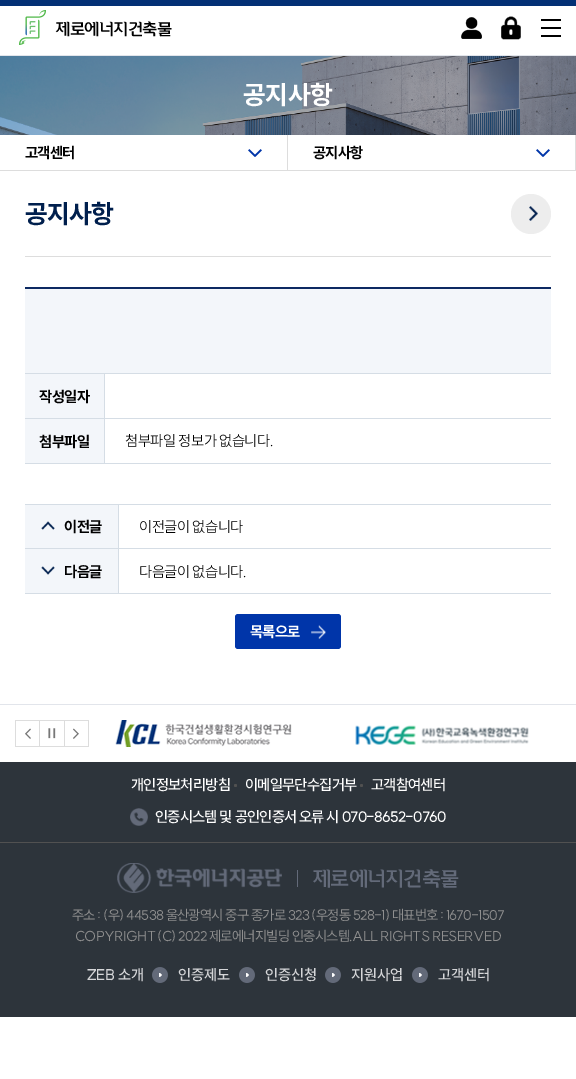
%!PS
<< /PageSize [576 1079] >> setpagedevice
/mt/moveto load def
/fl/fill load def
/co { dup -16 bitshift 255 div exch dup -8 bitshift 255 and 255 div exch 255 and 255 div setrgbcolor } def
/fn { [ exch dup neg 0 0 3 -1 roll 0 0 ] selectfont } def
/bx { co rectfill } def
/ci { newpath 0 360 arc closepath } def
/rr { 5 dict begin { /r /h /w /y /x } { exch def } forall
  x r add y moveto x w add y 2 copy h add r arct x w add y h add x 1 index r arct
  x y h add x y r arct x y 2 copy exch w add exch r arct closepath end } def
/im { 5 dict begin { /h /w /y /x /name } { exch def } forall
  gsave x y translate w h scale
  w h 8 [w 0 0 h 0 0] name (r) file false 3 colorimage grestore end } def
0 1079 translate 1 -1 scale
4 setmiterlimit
0 0 576 1079 16#FFFFFF bx
0 0 576 6 16#033075 bx
(media/1.raw) 19 10 27 35 im
(media/2.raw) 461 17 21 22 im
(media/3.raw) 501 16 20 24 im
(media/4.raw) 541 19 20 18 im
0 55 576 1 16#E2E5EB bx
(media/5.raw) 0 56 576 79 im
0 170 576 1 16#DDDDDD bx
287 135 1 35 16#DDDDDD bx
(media/6.raw) 248 149 14 8 im
575 135 1 35 16#DDDDDD bx
(media/6.raw) 536 149 14 8 im
25 256 526 1 16#DDDDDD bx
16#EDEDED co
531 214 20 ci fl
(media/7.raw) 529 206 9 15 im
25 287 526 2 16#0C2962 bx
25 289 526 84 16#F3F6FA bx
25 373 526 1 16#D5DDE5 bx
25 418 526 1 16#D5DDE5 bx
25 374 79 44 16#F3F6FA bx
104 374 1 44 16#D5DDE5 bx
25 463 526 1 16#D5DDE5 bx
25 419 79 44 16#F3F6FA bx
104 419 1 44 16#D5DDE5 bx
25 504 526 1 16#D5DDE5 bx
25 548 526 1 16#D5DDE5 bx
25 505 93 43 16#F3F6FA bx
118 505 1 43 16#D5DDE5 bx
(media/8.raw) 41 521 14 9 im
25 593 526 1 16#D5DDE5 bx
25 549 93 44 16#F3F6FA bx
118 549 1 44 16#D5DDE5 bx
(media/9.raw) 41 566 14 9 im
16#0035A9 co
235 614 106 35 3 rr fl
(media/10.raw) 311 625 15 14 im
0 704 576 1 16#E2E5EB bx
15 720 74 1 16#DDDDDD bx
15 746 74 1 16#DDDDDD bx
15 720 1 27 16#DDDDDD bx
39 721 1 25 16#DCDCDC bx
(media/11.raw) 25 728 6 11 im
64 721 1 25 16#DCDCDC bx
(media/12.raw) 48 728 8 11 im
88 721 1 25 16#DCDCDC bx
(media/13.raw) 73 728 6 11 im
(media/14.raw) 115 720 177 27 im
(media/15.raw) 355 725 174 20 im
0 762 576 255 16#2D343B bx
0 842 576 1 16#515151 bx
235.5 785.5 1.5 ci fl
361.5 785.5 1.5 ci fl
(media/16.raw) 130 808 18 18 im
(media/17.raw) 117 863 165 30 im
297 870 1 17 16#636A79 bx
(media/18.raw) 152 967 16 16 im
(media/18.raw) 239 967 16 16 im
(media/18.raw) 325 967 16 16 im
(media/18.raw) 412 967 16 16 im
/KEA-Regular 16 fn
16#000000 co
55 35 mt -.5 0 (제로에너지건축물) ashow
/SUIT-Bold 26 fn
16#FFFFFF co
243 104 mt -.25 0 (공지사항) ashow
/SUIT-Bold 15 fn
16#000000 co
25 158 mt -.75 0 (고객센터) ashow
313 158 mt -.75 0 (공지사항) ashow
/SUIT-Bold 26 fn
16#001F4D co
25 223 mt -.75 0 (공지사항) ashow
/SUIT-Bold 15 fn
16#000000 co
39 402 mt -.5 0 (작성일자) ashow
39 447 mt -.5 0 (첨부파일) ashow
/SUIT-Light 15 fn
125 446 mt -.5 0 (첨부파일 정보가 없습니다.) ashow
/SUIT-Bold 15 fn
64 532 mt -.5 0 (이전글) ashow
/SUIT-Light 15 fn
139 532 mt -.5 0 (이전글이 없습니다) ashow
/SUIT-Bold 15 fn
64 577 mt -.5 0 (다음글) ashow
/SUIT-Light 15 fn
139 577 mt -.5 0 (다음글이 없습니다.) ashow
/SUIT-Bold 15 fn
16#FFFFFF co
250 637 mt -.75 0 (목록으로) ashow
/SUIT-Medium 15 fn
131 790 mt -.75 0 (개인정보처리방침) ashow
245 790 mt -.75 0 (이메일무단수집거부) ashow
371 790 mt -.75 0 (고객참여센터) ashow
155 822 mt -.75 0 (인증시스템 및 공인인증서 오류 시 070-8652-0760) ashow
/KEA-Regular 20 fn
16#636A79 co
312 886 mt -.5 0 (제로에너지건축물) ashow
/SUIT-Regular 14 fn
16#8F8F8F co
72 920 mt -.75 0 (주소 : \(우\) 44538 울산광역시 중구 종가로 323 \(우정동 528-1\) 대표번호 : 1670-1507) ashow
75 941 mt -.75 0 (COPYRIGHT \(C\) 2022 제로에너지빌딩 인증시스템.ALL RIGHTS RESERVED) ashow
/SUIT-Medium 15 fn
16#D5D6D8 co
87 980 mt -.25 0 (ZEB 소개) ashow
178 980 mt -.25 0 (인증제도) ashow
265 980 mt -.25 0 (인증신청) ashow
351 980 mt -.25 0 (지원사업) ashow
438 980 mt -.25 0 (고객센터) ashow
showpage
